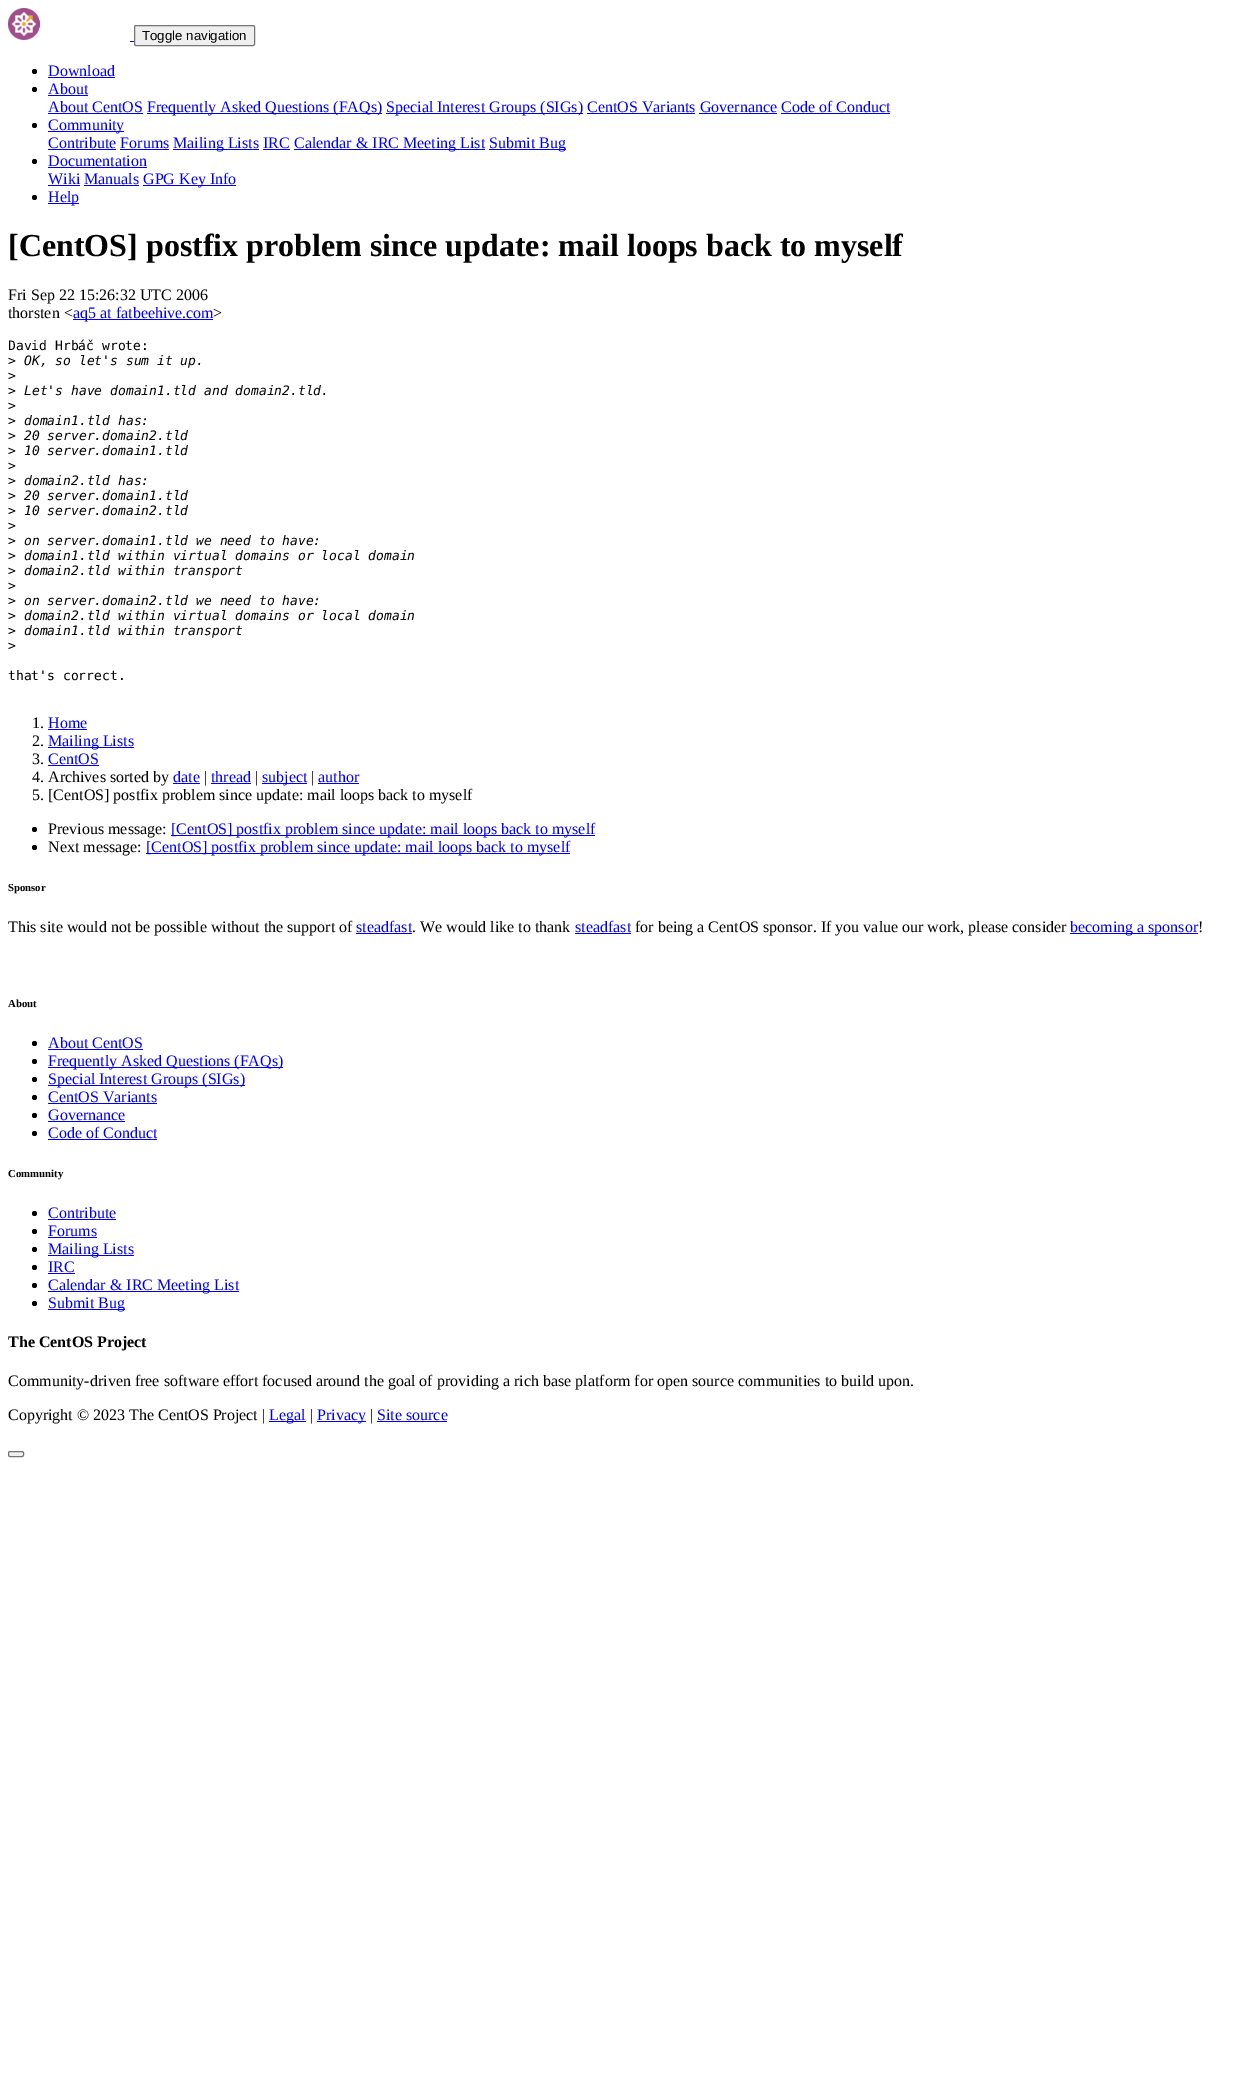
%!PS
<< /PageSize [1239 2093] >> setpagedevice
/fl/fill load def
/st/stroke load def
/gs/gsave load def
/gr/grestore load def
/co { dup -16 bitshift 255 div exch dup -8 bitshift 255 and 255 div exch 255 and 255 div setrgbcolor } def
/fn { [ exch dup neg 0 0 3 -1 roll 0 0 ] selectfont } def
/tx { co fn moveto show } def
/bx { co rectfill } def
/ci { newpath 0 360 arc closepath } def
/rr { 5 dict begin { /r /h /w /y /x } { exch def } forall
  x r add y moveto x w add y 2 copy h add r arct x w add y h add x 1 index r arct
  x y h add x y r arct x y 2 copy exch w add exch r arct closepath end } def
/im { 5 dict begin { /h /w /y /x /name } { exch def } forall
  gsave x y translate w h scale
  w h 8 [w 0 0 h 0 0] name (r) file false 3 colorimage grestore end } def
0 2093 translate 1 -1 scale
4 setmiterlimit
0 0 1239 2093 16#FFFFFF bx
(media/1.raw) 8 8 32 32 im
130 41 4 1 16#0000EE bx
16#EFEFEF co
134.5 25.5 120 20 1.5 rr gs fl gr
16#767676 co
st
16#000000 co
34.5 71.5 2.5 ci fl
48 77 67 1 16#0000EE bx
16#000000 co
34.5 89.5 2.5 ci fl
48 95 40 1 16#0000EE bx
48 113 95 1 16#0000EE bx
147 113 235 1 16#0000EE bx
386 113 197 1 16#0000EE bx
587 113 108 1 16#0000EE bx
699 113 78 1 16#0000EE bx
781 113 109 1 16#0000EE bx
16#000000 co
34.5 125.5 2.5 ci fl
48 131 76 1 16#0000EE bx
48 149 68 1 16#0000EE bx
173 149 86 1 16#0000EE bx
294 149 191 1 16#0000EE bx
489 149 77 1 16#0000EE bx
120 149 49 1 16#0000EE bx
263 149 27 1 16#0000EE bx
16#000000 co
34.5 161.5 2.5 ci fl
48 167 99 1 16#0000EE bx
48 185 32 1 16#0000EE bx
143 185 93 1 16#0000EE bx
84 185 55 1 16#0000EE bx
16#000000 co
34.5 197.5 2.5 ci fl
48 203 31 1 16#0000EE bx
73 319 140 1 16#0000EE bx
48 729 39 1 16#0000EE bx
48 747 86 1 16#0000EE bx
48 765 51 1 16#0000EE bx
173 783 27 1 16#0000EE bx
211 783 40 1 16#0000EE bx
262 783 45 1 16#0000EE bx
318 783 41 1 16#0000EE bx
16#000000 co
34.5 829.5 2.5 ci fl
171 835 424 1 16#0000EE bx
16#000000 co
34.5 847.5 2.5 ci fl
146 853 424 1 16#0000EE bx
356 933 56 1 16#0000EE bx
575 933 56 1 16#0000EE bx
1070 933 128 1 16#0000EE bx
16#000000 co
34.5 1043.5 2.5 ci fl
48 1049 95 1 16#0000EE bx
16#000000 co
34.5 1061.5 2.5 ci fl
48 1067 235 1 16#0000EE bx
16#000000 co
34.5 1079.5 2.5 ci fl
48 1085 197 1 16#0000EE bx
16#000000 co
34.5 1097.5 2.5 ci fl
48 1103 109 1 16#0000EE bx
16#000000 co
34.5 1115.5 2.5 ci fl
48 1121 77 1 16#0000EE bx
16#000000 co
34.5 1133.5 2.5 ci fl
48 1139 109 1 16#0000EE bx
16#000000 co
34.5 1213.5 2.5 ci fl
48 1219 68 1 16#0000EE bx
16#000000 co
34.5 1231.5 2.5 ci fl
48 1237 49 1 16#0000EE bx
16#000000 co
34.5 1249.5 2.5 ci fl
48 1255 86 1 16#0000EE bx
16#000000 co
34.5 1267.5 2.5 ci fl
48 1273 27 1 16#0000EE bx
16#000000 co
34.5 1285.5 2.5 ci fl
48 1291 191 1 16#0000EE bx
16#000000 co
34.5 1303.5 2.5 ci fl
48 1309 77 1 16#0000EE bx
269 1421 37 1 16#0000EE bx
317 1421 49 1 16#0000EE bx
377 1421 70 1 16#0000EE bx
16#EFEFEF co
8.5 1451.5 15 5 1.5 rr gs fl gr
16#767676 co
st
(Toggle navigation) 142 40 /LiberationSans-Regular 13.25 16#000000 tx
(Download) 48 76 /LiberationSerif-Regular 16 16#0000EE tx
(About) 48 94 /LiberationSerif-Regular 16 16#0000EE tx
(About CentOS) 48 112 /LiberationSerif-Regular 16 16#0000EE tx
(Frequently Asked Questions \(FAQs\)) 147 112 /LiberationSerif-Regular 16 16#0000EE tx
(Special Interest Groups \(SIGs\) CentOS Variants Governance Code of Conduct) 386 112 /LiberationSerif-Regular 16 16#0000EE tx
(Community) 48 130 /LiberationSerif-Regular 16 16#0000EE tx
(Contribute Forums) 48 148 /LiberationSerif-Regular 16 16#0000EE tx
(Mailing Lists IRC) 173 148 /LiberationSerif-Regular 16 16#0000EE tx
(Calendar & IRC Meeting List) 294 148 /LiberationSerif-Regular 16 16#0000EE tx
(Submit Bug) 489 148 /LiberationSerif-Regular 16 16#0000EE tx
(Documentation) 48 166 /LiberationSerif-Regular 16 16#0000EE tx
(Wiki Manuals) 48 184 /LiberationSerif-Regular 16 16#0000EE tx
(GPG Key Info) 143 184 /LiberationSerif-Regular 16 16#0000EE tx
(Help) 48 202 /LiberationSerif-Regular 16 16#0000EE tx
([CentOS] postfix problem since update: mail loops back to myself) 8 256 /LiberationSerif-Bold 32 16#000000 tx
(Fri Sep 22 15:26:32 UTC 2006) 8 300 /LiberationSerif-Regular 16 16#000000 tx
(thorsten <) 8 318 /LiberationSerif-Regular 16 16#000000 tx
(aq5 at fatbeehive.com) 73 318 /LiberationSerif-Regular 16 16#0000EE tx
(>) 213 318 /LiberationSerif-Regular 16 16#000000 tx
(David Hrbáč wrote:) 8 350 /DejaVuSansMono-Regular 13 16#000000 tx
(>) 8 365 /DejaVuSansMono-Regular 13 16#000000 tx
(OK, so let's sum it up.) 24 365 /DejaVuSansMono-Italic 13 16#000000 tx
(>) 8 380 /DejaVuSansMono-Regular 13 16#000000 tx
(>) 8 395 /DejaVuSansMono-Regular 13 16#000000 tx
(Let's have domain1.tld and domain2.tld.) 24 395 /DejaVuSansMono-Italic 13 16#000000 tx
(>) 8 410 /DejaVuSansMono-Regular 13 16#000000 tx
(>) 8 425 /DejaVuSansMono-Regular 13 16#000000 tx
(domain1.tld has:) 24 425 /DejaVuSansMono-Italic 13 16#000000 tx
(>) 8 440 /DejaVuSansMono-Regular 13 16#000000 tx
(20 server.domain2.tld) 24 440 /DejaVuSansMono-Italic 13 16#000000 tx
(>) 8 455 /DejaVuSansMono-Regular 13 16#000000 tx
(10 server.domain1.tld) 24 455 /DejaVuSansMono-Italic 13 16#000000 tx
(>) 8 470 /DejaVuSansMono-Regular 13 16#000000 tx
(>) 8 485 /DejaVuSansMono-Regular 13 16#000000 tx
(domain2.tld has:) 24 485 /DejaVuSansMono-Italic 13 16#000000 tx
(>) 8 500 /DejaVuSansMono-Regular 13 16#000000 tx
(20 server.domain1.tld) 24 500 /DejaVuSansMono-Italic 13 16#000000 tx
(>) 8 515 /DejaVuSansMono-Regular 13 16#000000 tx
(10 server.domain2.tld) 24 515 /DejaVuSansMono-Italic 13 16#000000 tx
(>) 8 530 /DejaVuSansMono-Regular 13 16#000000 tx
(>) 8 545 /DejaVuSansMono-Regular 13 16#000000 tx
(on server.domain1.tld we need to have:) 24 545 /DejaVuSansMono-Italic 13 16#000000 tx
(>) 8 560 /DejaVuSansMono-Regular 13 16#000000 tx
(domain1.tld within virtual domains or local domain) 24 560 /DejaVuSansMono-Italic 13 16#000000 tx
(>) 8 575 /DejaVuSansMono-Regular 13 16#000000 tx
(domain2.tld within transport) 24 575 /DejaVuSansMono-Italic 13 16#000000 tx
(>) 8 590 /DejaVuSansMono-Regular 13 16#000000 tx
(>) 8 605 /DejaVuSansMono-Regular 13 16#000000 tx
(on server.domain2.tld we need to have:) 24 605 /DejaVuSansMono-Italic 13 16#000000 tx
(>) 8 620 /DejaVuSansMono-Regular 13 16#000000 tx
(domain2.tld within virtual domains or local domain) 24 620 /DejaVuSansMono-Italic 13 16#000000 tx
(>) 8 635 /DejaVuSansMono-Regular 13 16#000000 tx
(domain1.tld within transport) 24 635 /DejaVuSansMono-Italic 13 16#000000 tx
(>) 8 650 /DejaVuSansMono-Regular 13 16#000000 tx
(that's correct.) 8 680 /DejaVuSansMono-Regular 13 16#000000 tx
(1.) 32 728 /LiberationSerif-Regular 16 16#000000 tx
(Home) 48 728 /LiberationSerif-Regular 16 16#0000EE tx
(2.) 32 746 /LiberationSerif-Regular 16 16#000000 tx
(Mailing Lists) 48 746 /LiberationSerif-Regular 16 16#0000EE tx
(3.) 32 764 /LiberationSerif-Regular 16 16#000000 tx
(CentOS) 48 764 /LiberationSerif-Regular 16 16#0000EE tx
(4. Archives sorted by) 32 782 /LiberationSerif-Regular 16 16#000000 tx
(date) 173 782 /LiberationSerif-Regular 16 16#0000EE tx
(|) 204 782 /LiberationSerif-Regular 16 16#000000 tx
(thread) 211 782 /LiberationSerif-Regular 16 16#0000EE tx
(|) 255 782 /LiberationSerif-Regular 16 16#000000 tx
(subject) 262 782 /LiberationSerif-Regular 16 16#0000EE tx
(|) 311 782 /LiberationSerif-Regular 16 16#000000 tx
(author) 318 782 /LiberationSerif-Regular 16 16#0000EE tx
(5. [CentOS] postfix problem since update: mail loops back to myself) 32 800 /LiberationSerif-Regular 16 16#000000 tx
(Previous message:) 48 834 /LiberationSerif-Regular 16 16#000000 tx
([CentOS] postfix problem since update: mail loops back to myself) 171 834 /LiberationSerif-Regular 16 16#0000EE tx
(Next message:) 48 852 /LiberationSerif-Regular 16 16#000000 tx
([CentOS] postfix problem since update: mail loops back to myself) 146 852 /LiberationSerif-Regular 16 16#0000EE tx
(Sponsor) 8 891 /LiberationSerif-Bold 10.75 16#000000 tx
(This site would not be possible without the support of) 8 932 /LiberationSerif-Regular 16 16#000000 tx
(steadfast) 356 932 /LiberationSerif-Regular 16 16#0000EE tx
(. We would like to thank) 412 932 /LiberationSerif-Regular 16 16#000000 tx
(steadfast) 575 932 /LiberationSerif-Regular 16 16#0000EE tx
(for being a CentOS sponsor. If you value our work, please consider) 635 932 /LiberationSerif-Regular 16 16#000000 tx
(becoming a sponsor) 1070 932 /LiberationSerif-Regular 16 16#0000EE tx
(!) 1198 932 /LiberationSerif-Regular 16 16#000000 tx
(About) 8 1007 /LiberationSerif-Bold 10.75 16#000000 tx
(About CentOS) 48 1048 /LiberationSerif-Regular 16 16#0000EE tx
(Frequently Asked Questions \(FAQs\)) 48 1066 /LiberationSerif-Regular 16 16#0000EE tx
(Special Interest Groups \(SIGs\)) 48 1084 /LiberationSerif-Regular 16 16#0000EE tx
(CentOS Variants) 48 1102 /LiberationSerif-Regular 16 16#0000EE tx
(Governance) 48 1120 /LiberationSerif-Regular 16 16#0000EE tx
(Code of Conduct) 48 1138 /LiberationSerif-Regular 16 16#0000EE tx
(Community) 8 1177 /LiberationSerif-Bold 10.75 16#000000 tx
(Contribute) 48 1218 /LiberationSerif-Regular 16 16#0000EE tx
(Forums) 48 1236 /LiberationSerif-Regular 16 16#0000EE tx
(Mailing Lists) 48 1254 /LiberationSerif-Regular 16 16#0000EE tx
(IRC) 48 1272 /LiberationSerif-Regular 16 16#0000EE tx
(Calendar & IRC Meeting List) 48 1290 /LiberationSerif-Regular 16 16#0000EE tx
(Submit Bug) 48 1308 /LiberationSerif-Regular 16 16#0000EE tx
(The CentOS Project) 8 1347 /LiberationSerif-Bold 16 16#000000 tx
(Community-driven free software effort focused around the goal of providing a rich base platform for open source communities to build upon.) 8 1386 /LiberationSerif-Regular 16 16#000000 tx
(Copyright © 2023 The CentOS Project |) 8 1420 /LiberationSerif-Regular 16 16#000000 tx
(Legal) 269 1420 /LiberationSerif-Regular 16 16#0000EE tx
(|) 310 1420 /LiberationSerif-Regular 16 16#000000 tx
(Privacy) 317 1420 /LiberationSerif-Regular 16 16#0000EE tx
(|) 370 1420 /LiberationSerif-Regular 16 16#000000 tx
(Site source) 377 1420 /LiberationSerif-Regular 16 16#0000EE tx
showpage
